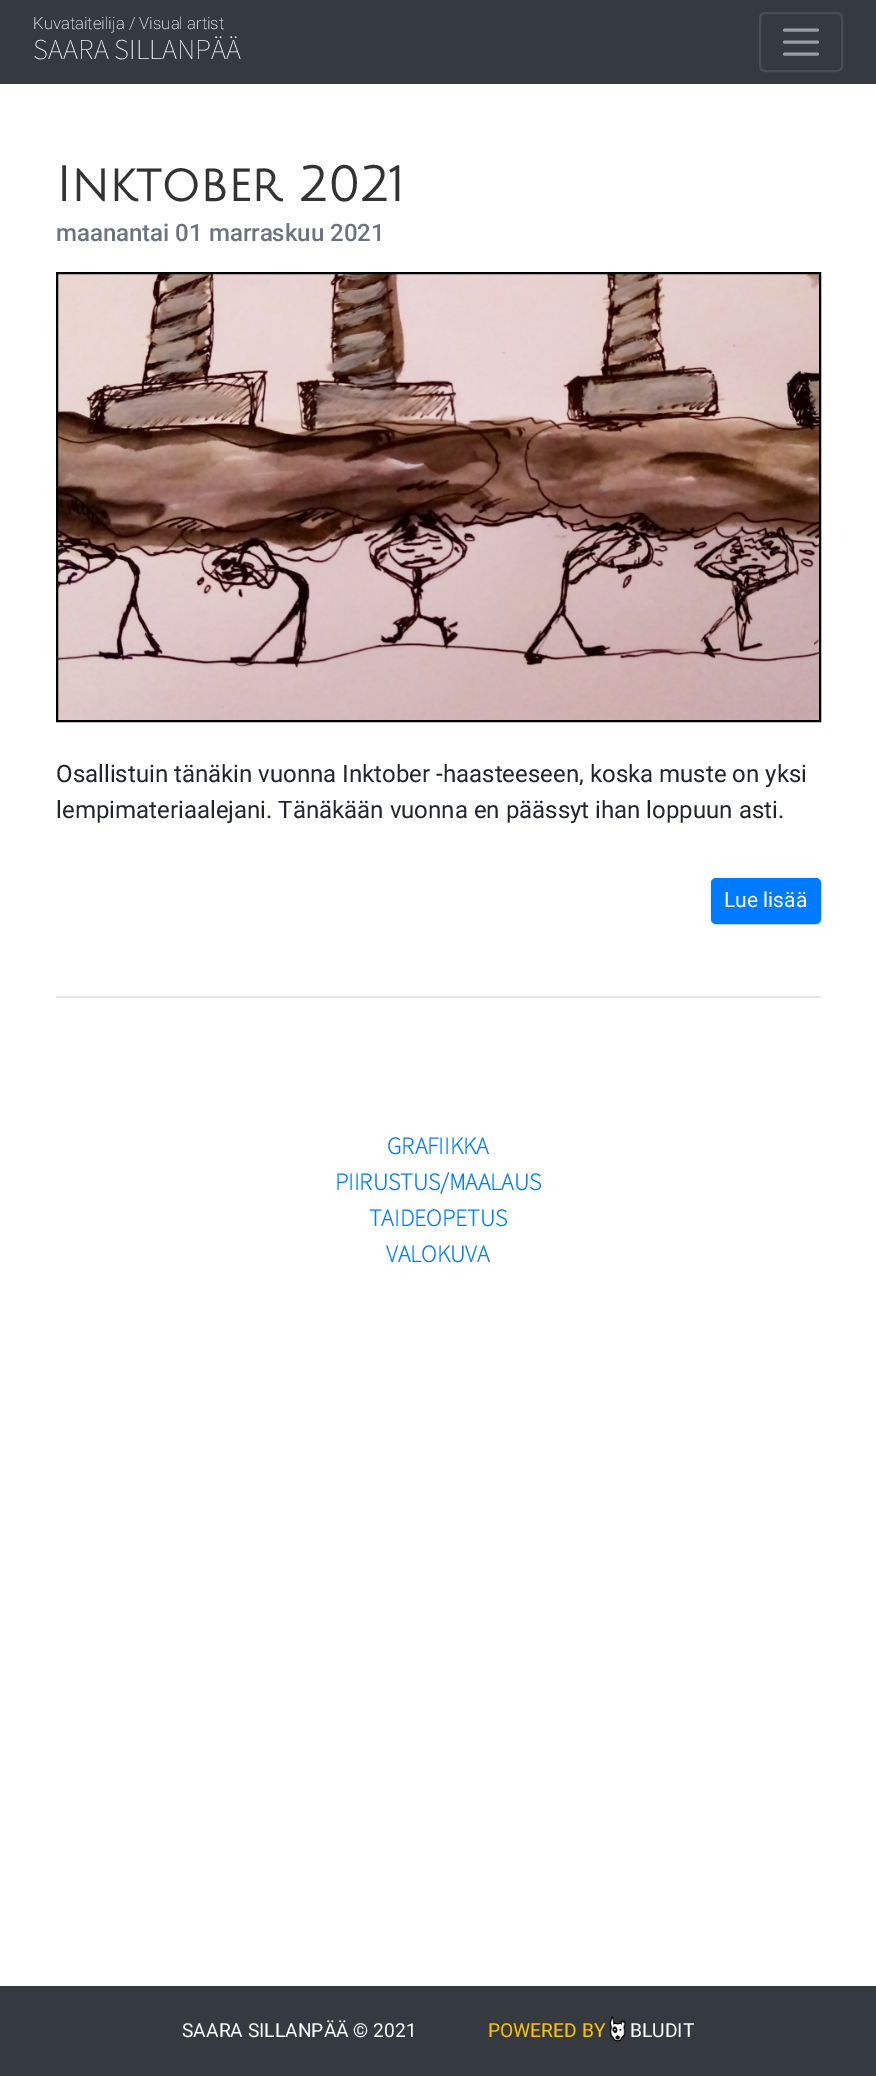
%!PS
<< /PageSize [876 2076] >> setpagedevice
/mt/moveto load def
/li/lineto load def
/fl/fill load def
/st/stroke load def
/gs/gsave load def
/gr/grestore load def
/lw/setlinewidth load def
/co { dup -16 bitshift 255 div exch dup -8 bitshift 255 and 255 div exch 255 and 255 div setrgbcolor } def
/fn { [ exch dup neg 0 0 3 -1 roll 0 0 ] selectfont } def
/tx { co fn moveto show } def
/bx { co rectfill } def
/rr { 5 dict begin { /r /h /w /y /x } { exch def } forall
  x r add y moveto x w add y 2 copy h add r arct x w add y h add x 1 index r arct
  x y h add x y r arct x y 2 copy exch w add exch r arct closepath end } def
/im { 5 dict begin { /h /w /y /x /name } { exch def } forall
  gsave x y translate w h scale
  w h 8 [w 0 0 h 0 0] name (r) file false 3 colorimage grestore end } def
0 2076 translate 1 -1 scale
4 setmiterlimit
0 0 876 2076 16#FFFFFF bx
0 0 876 84 16#343A40 bx
16#484E53 co
2 lw
760 13 82 58 5 rr st
16#9A9DA0 co
3 lw
1 setlinecap
784.5 30 mt 817.5 30 li 784.5 42 mt 817.5 42 li 784.5 54 mt 817.5 54 li st
(media/1.raw) 58 274 761 446 im
16#000000 co
2 lw
0 setlinecap
57 273 763 448 rectstroke
16#007BFF co
712 879 108 44 4 rr gs fl gr
st
56 996 765 2 16#E6E6E6 bx
0 1986 876 90 16#343A40 bx
(media/2.raw) 609 2016 17 26 im
(Kuvataiteilija / Visual artist) 33 29 /Roboto-ExtraLight 16.75 16#FFFFFF tx
(SAARA SILLANPÄÄ) 33 59 /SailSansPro-ExtraLight 28.75 16#FFFFFF tx
(Inktober 2021) 56 201 /JuliusSansOne-Bold 48 16#333333 tx
(maanantai 01 marraskuu 2021) 56 241 /Roboto-Medium 24 16#6C757D tx
(Osallistuin tänäkin vuonna Inktober -haasteeseen, koska muste on yksi) 56 782 /Roboto-Regular 24 16#212529 tx
(lempimateriaalejani. Tänäkään vuonna en päässyt ihan loppuun asti.) 56 818 /Roboto-Regular 24 16#212529 tx
(Lue lisää) 724 907 /Roboto-Regular 21 16#FFFFFF tx
(GRAFIIKKA) 387 1154 /SailSansPro-Bold 24 16#007BFF tx
(PIIRUSTUS/MAALAUS) 335 1190 /SailSansPro-Bold 24 16#007BFF tx
(TAIDEOPETUS) 369 1226 /SailSansPro-Bold 24 16#007BFF tx
(VALOKUVA) 386 1262 /SailSansPro-Bold 24 16#007BFF tx
(SAARA SILLANPÄÄ © 2021) 182 2037 /Roboto-Regular 19.25 16#FFFFFF tx
(POWERED BY) 488 2037 /Roboto-Regular 19.25 16#FFC107 tx
(BLUDIT) 630 2037 /Roboto-Regular 19.25 16#FFFFFF tx
showpage
